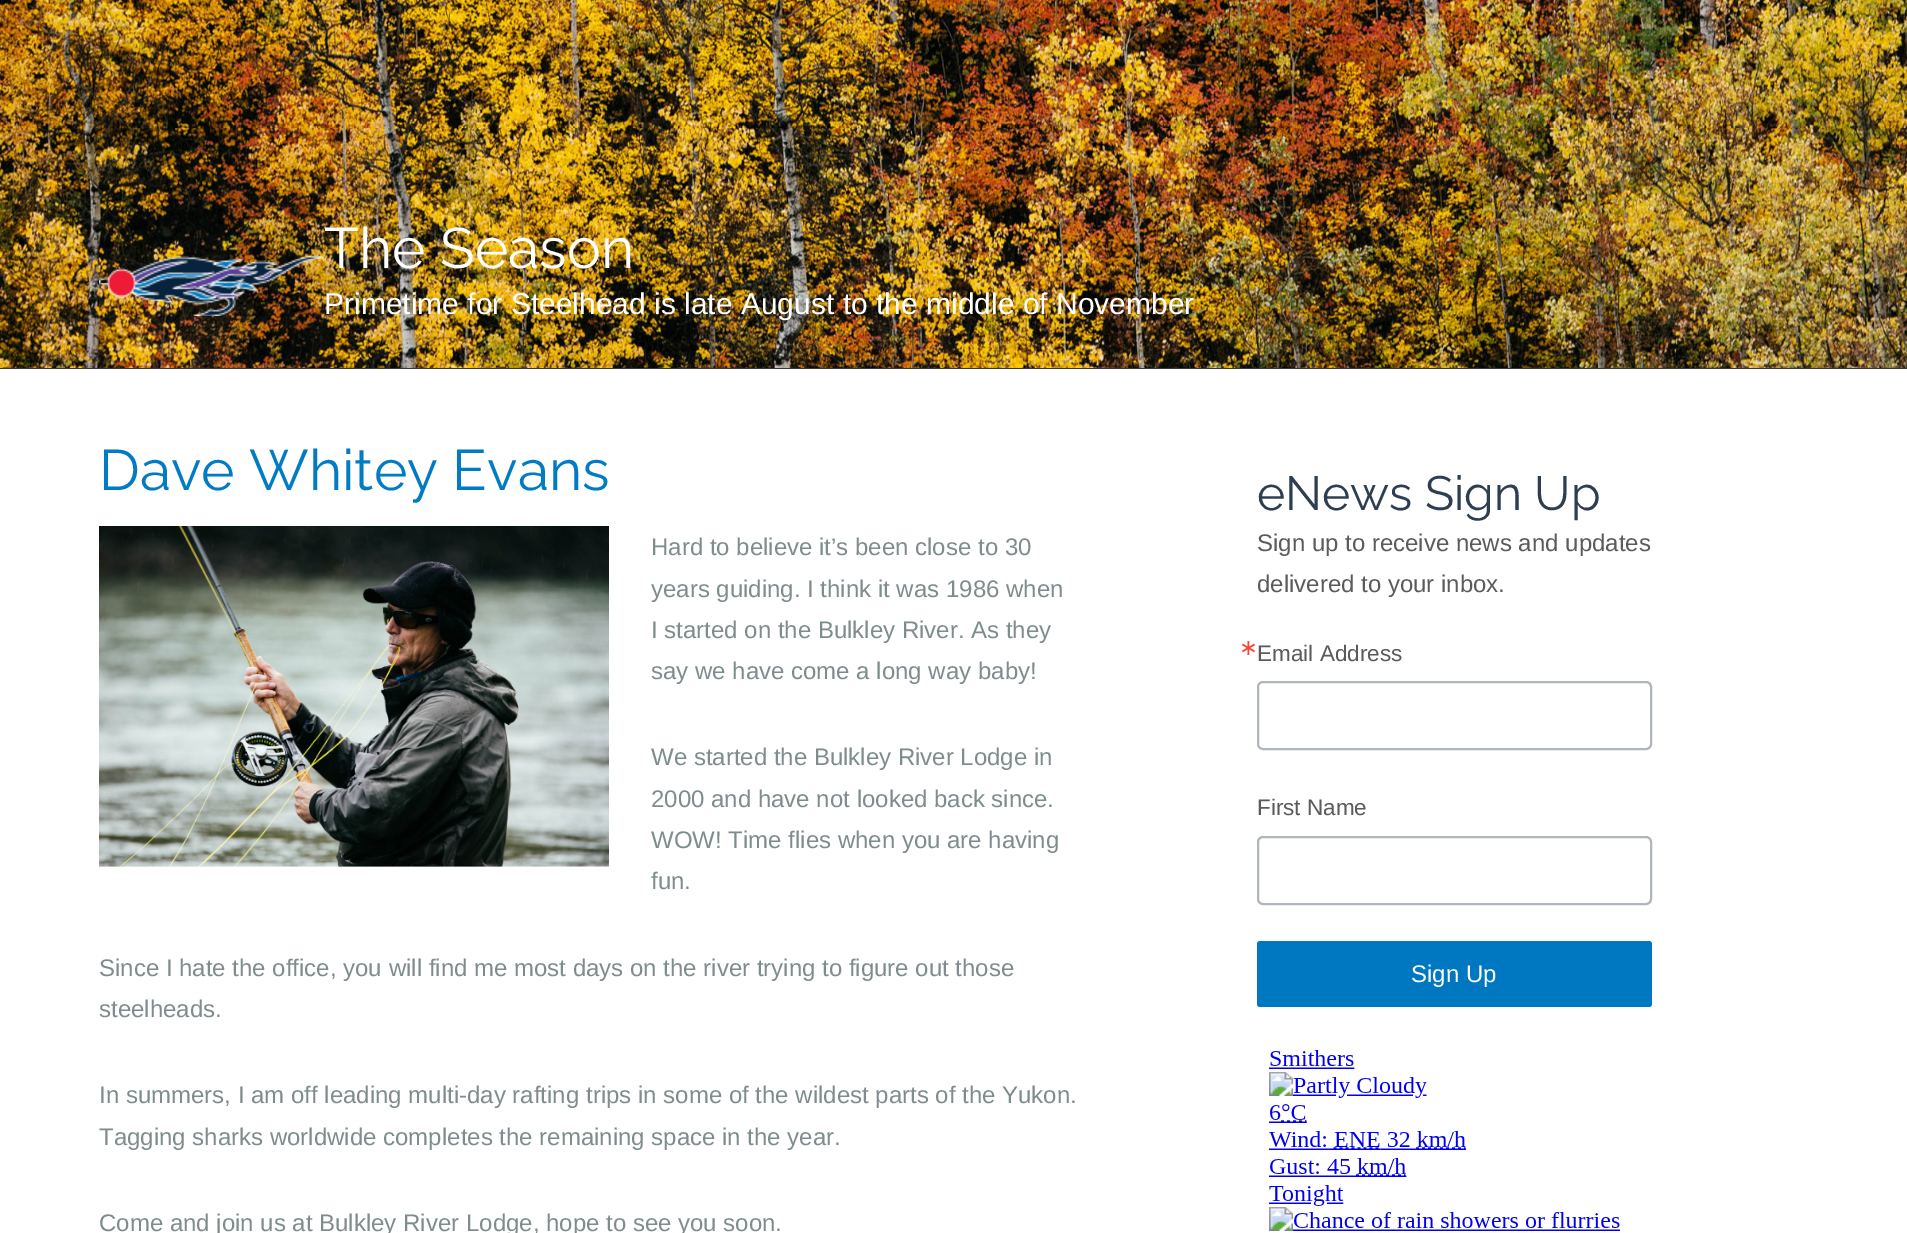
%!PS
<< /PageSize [1907 1233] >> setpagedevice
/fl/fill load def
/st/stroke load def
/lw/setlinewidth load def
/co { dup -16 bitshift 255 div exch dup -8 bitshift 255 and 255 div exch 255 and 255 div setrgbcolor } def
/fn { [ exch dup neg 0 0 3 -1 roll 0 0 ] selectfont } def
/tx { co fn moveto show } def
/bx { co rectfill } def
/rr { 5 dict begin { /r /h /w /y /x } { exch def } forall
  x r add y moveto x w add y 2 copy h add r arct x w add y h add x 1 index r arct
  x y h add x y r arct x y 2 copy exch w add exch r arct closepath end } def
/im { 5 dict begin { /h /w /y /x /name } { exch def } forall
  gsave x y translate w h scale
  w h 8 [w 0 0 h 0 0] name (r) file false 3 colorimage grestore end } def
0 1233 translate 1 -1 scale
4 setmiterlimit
0 0 1907 1233 16#FFFFFF bx
0 368 1907 1 16#363940 bx
(media/1.raw) 0 0 1907 368 im
(media/2.raw) 99 255 225 61 im
(media/3.raw) 99 526 510 341 im
16#B0B6BB co
2 lw
1258 682 393 67 5 rr st
1258 837 393 67 5 rr st
16#0078C1 co
1257 941 395 66 3 rr fl
(media/4.raw) 1269 1050 351 181 im
(The Season) 324 268 /Raleway-Thin 57 16#FFFFFF tx
(Primetime for Steelhead is late August to the middle of November) 324 314 /LiberationSans-Regular 30 16#FFFFFF tx
(Dave Whitey Evans) 99 490 /Raleway-Thin 57 16#007BC4 tx
(Hard to believe it’s been close to 30) 651 555 /LiberationSans-Regular 24 16#7F8C8D tx
(years guiding. I think it was 1986 when) 651 597 /LiberationSans-Regular 24 16#7F8C8D tx
(I started on the Bulkley River. As they) 651 638 /LiberationSans-Regular 24 16#7F8C8D tx
(say we have come a long way baby!) 651 679 /LiberationSans-Regular 24 16#7F8C8D tx
(We started the Bulkley River Lodge in) 651 765 /LiberationSans-Regular 24 16#7F8C8D tx
(2000 and have not looked back since.) 651 807 /LiberationSans-Regular 24 16#7F8C8D tx
(WOW! Time flies when you are having) 651 848 /LiberationSans-Regular 24 16#7F8C8D tx
(fun.) 651 889 /LiberationSans-Regular 24 16#7F8C8D tx
(Since I hate the office, you will find me most days on the river trying to figure out those) 99 976 /LiberationSans-Regular 24 16#7F8C8D tx
(steelheads.) 99 1017 /LiberationSans-Regular 24 16#7F8C8D tx
(In summers, I am off leading multi-day rafting trips in some of the wildest parts of the Yukon.) 99 1103 /LiberationSans-Regular 24 16#7F8C8D tx
(Tagging sharks worldwide completes the remaining space in the year.) 99 1145 /LiberationSans-Regular 24 16#7F8C8D tx
(Come and join us at Bulkley River Lodge, hope to see you soon.) 99 1231 /LiberationSans-Regular 24 16#7F8C8D tx
(eNews Sign Up) 1257 510 /Raleway-Thin 48 16#2C3E50 tx
(Sign up to receive news and updates) 1257 551 /LiberationSans-Regular 24 16#5B5B5B tx
(delivered to your inbox.) 1257 592 /LiberationSans-Regular 24 16#5B5B5B tx
(∗) 1239 655 /DejaVuSans-Regular 22.5 16#F5463B tx
(Email Address) 1257 661 /LiberationSans-Regular 22.5 16#5B5B5B tx
(First Name) 1257 815 /LiberationSans-Regular 22.5 16#5B5B5B tx
(Sign Up) 1411 982 /LiberationSans-Regular 24 16#FFFFFF tx
showpage
